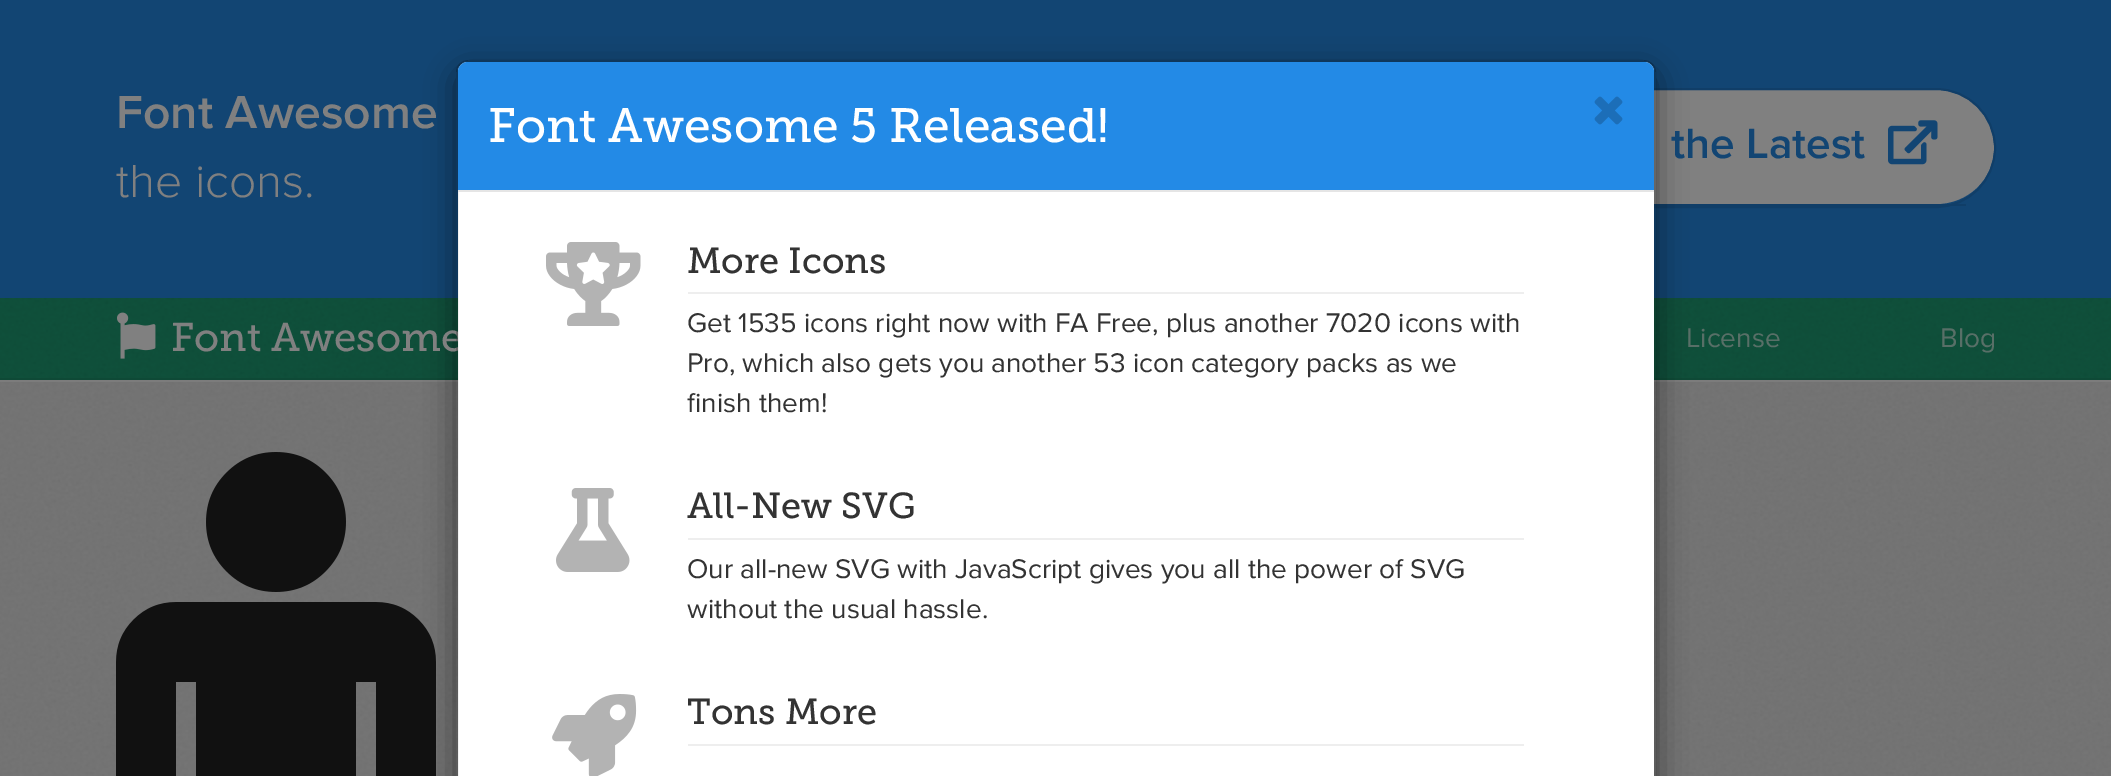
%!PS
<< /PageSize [2111 776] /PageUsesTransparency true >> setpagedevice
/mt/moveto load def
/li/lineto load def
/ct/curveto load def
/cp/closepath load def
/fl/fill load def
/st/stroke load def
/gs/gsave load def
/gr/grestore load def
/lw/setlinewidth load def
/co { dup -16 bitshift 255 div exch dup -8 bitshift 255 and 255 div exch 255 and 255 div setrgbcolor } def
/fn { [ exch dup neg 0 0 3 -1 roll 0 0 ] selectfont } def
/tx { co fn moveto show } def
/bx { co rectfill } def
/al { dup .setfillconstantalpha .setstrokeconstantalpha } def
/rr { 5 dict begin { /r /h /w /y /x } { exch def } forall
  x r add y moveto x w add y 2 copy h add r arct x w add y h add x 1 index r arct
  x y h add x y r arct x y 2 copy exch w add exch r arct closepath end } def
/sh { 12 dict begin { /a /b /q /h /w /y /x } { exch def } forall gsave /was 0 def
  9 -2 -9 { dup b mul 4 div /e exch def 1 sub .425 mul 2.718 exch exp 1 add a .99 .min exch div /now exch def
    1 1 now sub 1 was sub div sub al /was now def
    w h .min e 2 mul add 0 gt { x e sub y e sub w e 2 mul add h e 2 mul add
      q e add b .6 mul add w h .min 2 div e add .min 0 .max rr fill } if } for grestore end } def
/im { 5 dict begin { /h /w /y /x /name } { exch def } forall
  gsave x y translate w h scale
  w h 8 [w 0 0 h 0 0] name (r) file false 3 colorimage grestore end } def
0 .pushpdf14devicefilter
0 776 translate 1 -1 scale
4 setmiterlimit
0 0 2111 776 16#124573 bx
16#808080 co
1592 90 mt 1936 90 li 1968 90 1994 116 1994 148 ct 1994 179 1968 204 1936 204 ct 1592 204 li 1560 204 1534 179 1534 148 ct 1534 116 1560 90 1592 90 ct cp fl
0.2 al
1592 92 mt 1936 92 li 1968 92 1993 117 1994 149 ct 1994 148 li 1994 116 1968 90 1936 90 ct 1592 90 li 1560 90 1534 116 1534 148 ct 1534 149 li 1535 117 1560 92 1592 92 ct cp fl
1 al
16#103E68 co
2 lw
1533 89 462 118 59 rr st
1654 204 312 2 16#103E68 bx
(media/1.raw) 1888 120 50 45 im
0 298 2111 80 16#10533D bx
0 378 2111 2 16#0E4936 bx
(media/2.raw) 0 298 2111 80 im
(media/3.raw) 117 312 39 47 im
0 382 2111 394 16#777777 bx
0 380 2111 2 16#7C7C7C bx
(media/4.raw) 0 382 2111 394 im
(media/5.raw) 116 452 320 324 im
gs
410 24 mt 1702 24 li 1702 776 li 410 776 li cp 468 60 mt 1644 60 li 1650.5 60 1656 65.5 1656 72 ct 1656 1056 li 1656 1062.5 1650.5 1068 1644 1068 ct 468 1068 li 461.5 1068 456 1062.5 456 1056 ct 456 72 li 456 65.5 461.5 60 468 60 ct cp eoclip newpath
16#000000 co
456 70 1200 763 12 15 .5 sh
gr
(Font Awesome) 116 128 /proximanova-SemiBold 48 16#808080 tx
(the icons.) 116 197 /proximanova-Light 48 16#808080 tx
(the Latest) 1671 158 /proximanova-SemiBold 44 16#124573 tx
(Font Awesome) 171 351 /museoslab-Regular 40 16#808080 tx
(License) 1686 347 /proximanova-Regular 28 16#586F67 tx
(Blog) 1940 347 /proximanova-Regular 28 16#586F67 tx
16#FFFFFF co
468 62 mt 1644 62 li 1649.5 62 1654 66.5 1654 72 ct 1654 776 li 458 776 li 458 72 li 458 66.5 462.5 62 468 62 ct cp fl
0.2 al
16#000000 co
457 61 1198 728 11 rr st
1 al
16#238AE6 co
468 62 mt 1644 62 li 1649.5 62 1654 66.5 1654 72 ct 1654 192 li 458 192 li 458 72 li 458 66.5 462.5 62 468 62 ct cp fl
458 190 1196 2 16#E5E5E5 bx
(Font Awesome 5 Released!) 488 142 /museoslab-Regular 48 16#FFFFFF tx
(media/6.raw) 1594 96 29 29 im
(media/7.raw) 546 242 95 84 im
688 292 836 2 16#EEEEEE bx
(More Icons) 687 273 /museoslab-Regular 36 16#333333 tx
(Get 1535 icons right now with FA Free, plus another 7020 icons with) 687 332 /proximanova-Regular 28 16#333333 tx
(Pro, which also gets you another 53 icon category packs as we) 687 372 /proximanova-Regular 28 16#333333 tx
(finish them!) 687 412 /proximanova-Regular 28 16#333333 tx
(media/8.raw) 556 488 74 84 im
688 538 836 2 16#EEEEEE bx
(All-New SVG) 687 518 /museoslab-Regular 36 16#333333 tx
(Our all-new SVG with JavaScript gives you all the power of SVG) 687 578 /proximanova-Regular 28 16#333333 tx
(without the usual hassle.) 687 618 /proximanova-Regular 28 16#333333 tx
(media/9.raw) 552 694 85 82 im
688 744 836 2 16#EEEEEE bx
(Tons More) 687 724 /museoslab-Regular 36 16#333333 tx
.poppdf14devicefilter showpage
